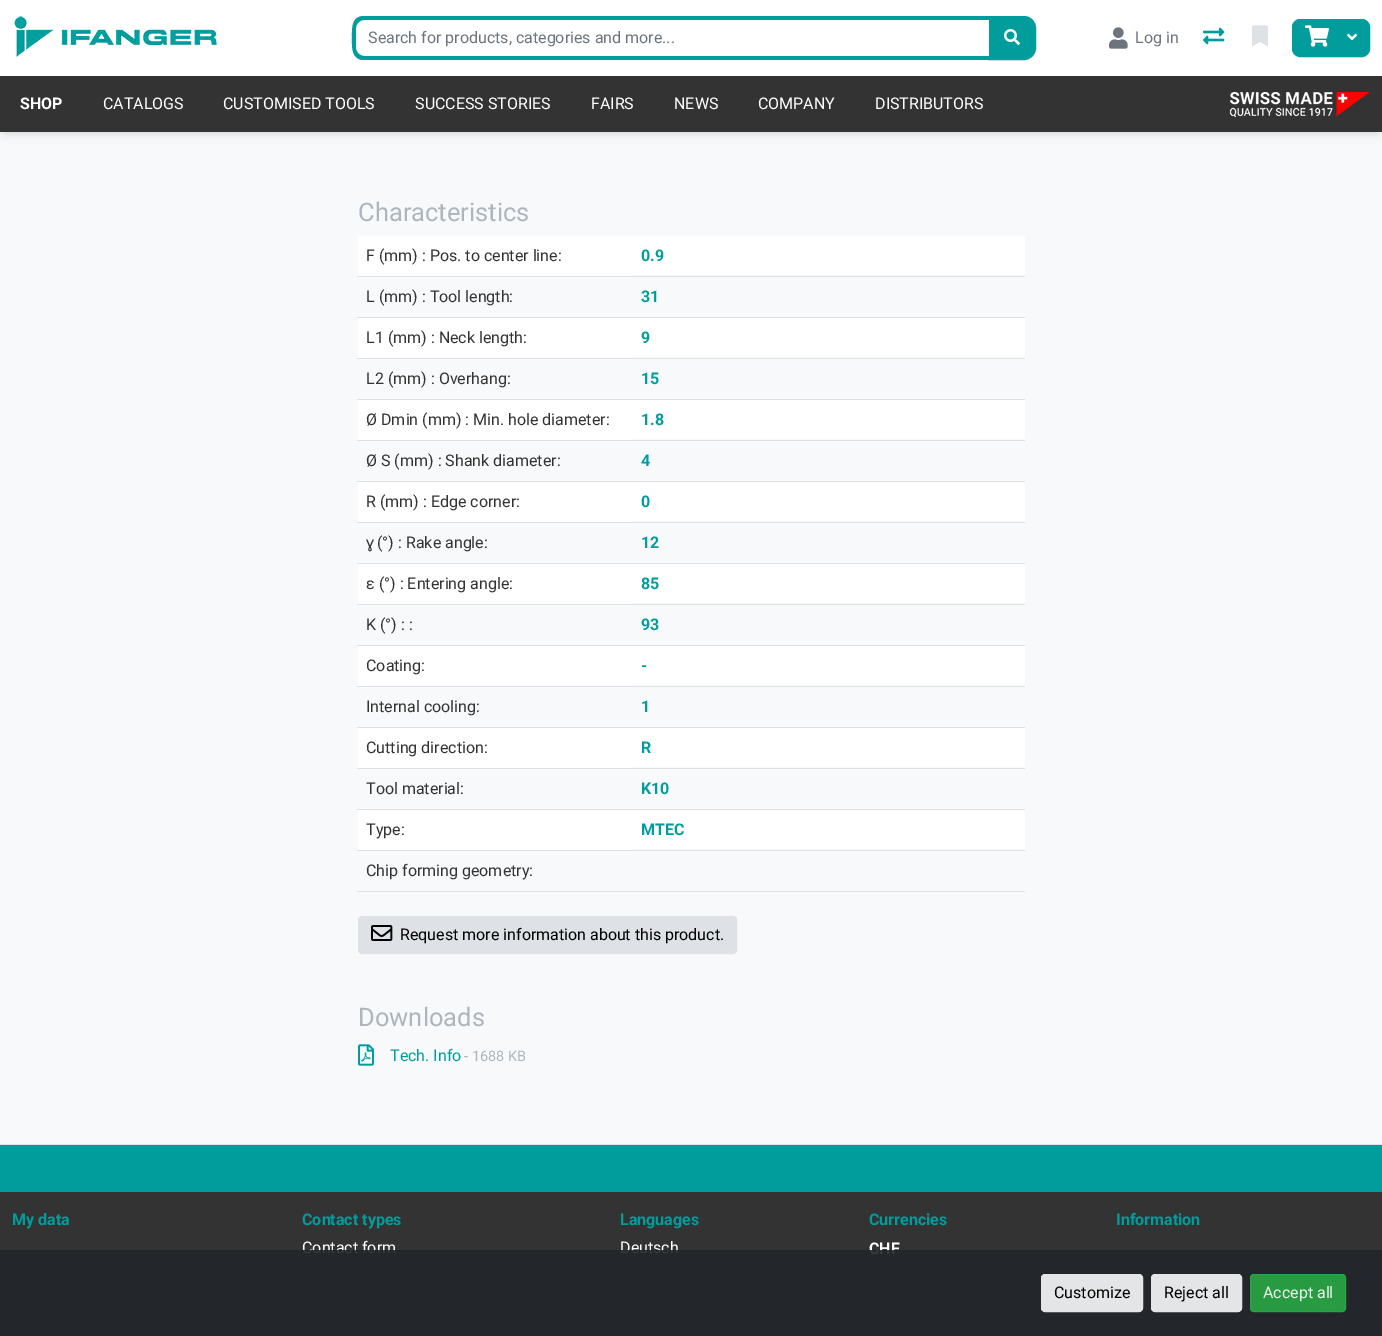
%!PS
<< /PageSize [1382 1336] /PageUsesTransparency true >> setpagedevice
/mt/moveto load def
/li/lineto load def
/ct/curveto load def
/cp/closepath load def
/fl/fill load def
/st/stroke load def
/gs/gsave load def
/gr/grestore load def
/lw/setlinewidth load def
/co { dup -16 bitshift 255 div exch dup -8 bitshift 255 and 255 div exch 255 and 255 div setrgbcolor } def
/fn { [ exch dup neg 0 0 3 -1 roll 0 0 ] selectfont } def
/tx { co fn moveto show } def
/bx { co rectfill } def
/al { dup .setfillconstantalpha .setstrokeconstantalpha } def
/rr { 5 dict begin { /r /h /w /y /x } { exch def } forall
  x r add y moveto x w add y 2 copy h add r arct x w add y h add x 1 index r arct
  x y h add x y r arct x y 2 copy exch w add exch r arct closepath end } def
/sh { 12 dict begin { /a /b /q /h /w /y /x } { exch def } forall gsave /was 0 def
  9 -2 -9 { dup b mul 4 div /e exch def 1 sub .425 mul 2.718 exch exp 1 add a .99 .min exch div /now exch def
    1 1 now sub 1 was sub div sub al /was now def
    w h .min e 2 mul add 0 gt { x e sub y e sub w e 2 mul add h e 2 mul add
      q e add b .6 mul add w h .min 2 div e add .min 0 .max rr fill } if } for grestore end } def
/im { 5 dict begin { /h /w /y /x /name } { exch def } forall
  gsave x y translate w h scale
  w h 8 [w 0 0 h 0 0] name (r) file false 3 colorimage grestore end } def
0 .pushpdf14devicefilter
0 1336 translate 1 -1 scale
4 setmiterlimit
0 0 1382 1336 16#F8F9FA bx
16#000000 co
5 10 1372 122 0 5 .2 sh
0 0 1382 76 16#FFFFFF bx
(media/1.raw) 14 16 204 41 im
16#019D9C co
990 18 mt 1024 18 li 1029.5 18 1034 22.5 1034 28 ct 1034 48 li 1034 53.5 1029.5 58 1024 58 ct 990 58 li cp gs fl gr
4 lw
st
16#FFFFFF co
364 20 mt 989 20 li 989 56 li 364 56 li 359.5 56 356 52.5 356 48 ct 356 28 li 356 23.5 359.5 20 364 20 ct cp fl
16#019D9C co
364 16 mt 989 16 li 989 60 li 362 60 li 351 58 352 46 352 38 ct 352 29 351 16 364 16 ct cp 364 20 mt 989 20 li 989 56 li 364 56 li 360 56 356 52 356 48 ct 356 28 li 356 24 360 20 364 20 ct cp eofill
(media/2.raw) 1004 29 16 16 im
(media/3.raw) 1109 27 19 22 im
(media/4.raw) 1203 27 22 18 im
(media/5.raw) 1252 25 16 22 im
1300 19.5 mt 1337.5 19.5 li 1337.5 56.5 li 1300 56.5 li 1296 56.5 1292.5 53 1292.5 49 ct 1292.5 27 li 1292.5 23 1296 19.5 1300 19.5 ct cp gs fl gr
1 lw
st
(media/6.raw) 1305 25 24 22 im
1338.5 19.5 mt 1362 19.5 li 1366 19.5 1369.5 23 1369.5 27 ct 1369.5 49 li 1369.5 53 1366 56.5 1362 56.5 ct 1338.5 56.5 li cp gs fl gr
st
(media/7.raw) 1347 33 10 8 im
0 76 1382 56 16#333333 bx
(media/8.raw) 1230 92 140 25 im
358 236 275 40 16#FFFFFF bx
633 236 392 39 16#FFFFFF bx
357 276 668 1 16#DEE2E6 bx
357 317 668 1 16#DEE2E6 bx
358 318 275 40 16#FFFFFF bx
633 318 392 39 16#FFFFFF bx
357 358 668 1 16#DEE2E6 bx
357 399 668 1 16#DEE2E6 bx
358 400 275 40 16#FFFFFF bx
633 400 392 39 16#FFFFFF bx
357 440 668 1 16#DEE2E6 bx
357 481 668 1 16#DEE2E6 bx
358 482 275 40 16#FFFFFF bx
633 482 392 39 16#FFFFFF bx
357 522 668 1 16#DEE2E6 bx
357 563 668 1 16#DEE2E6 bx
358 564 275 40 16#FFFFFF bx
633 564 392 39 16#FFFFFF bx
357 604 668 1 16#DEE2E6 bx
357 645 668 1 16#DEE2E6 bx
358 646 275 40 16#FFFFFF bx
633 646 392 39 16#FFFFFF bx
357 686 668 1 16#DEE2E6 bx
357 727 668 1 16#DEE2E6 bx
358 728 275 40 16#FFFFFF bx
633 728 392 39 16#FFFFFF bx
357 768 668 1 16#DEE2E6 bx
357 809 668 1 16#DEE2E6 bx
358 810 275 40 16#FFFFFF bx
633 810 392 39 16#FFFFFF bx
357 850 668 1 16#DEE2E6 bx
357 891 668 1 16#DEE2E6 bx
358.5 916.5 378 37 3.5 rr gs fl gr
st
(media/9.raw) 371 925 22 16 im
(media/10.raw) 358 1044 16 22 im
0 1144 1382 1 16#DEE2E6 bx
0 1145 1382 47 16#019D9C bx
0 1192 1382 144 16#333333 bx
(media/11.raw) 1310 1281 32 32 im
(Search for products, categories and more...) 368 43 /Roboto-Regular 16 16#6C757D tx
(Log in) 1135 43 /Roboto-Regular 16 16#6C757D tx
(SHOP) 20 109 /Roboto-Bold 16 16#FFFFFF tx
(CATALOGS) 103 109 /Roboto-Regular 16 16#FFFFFF tx
(CUSTOMISED TOOLS) 223 109 /Roboto-Regular 16 16#FFFFFF tx
(SUCCESS STORIES) 415 109 /Roboto-Regular 16 16#FFFFFF tx
(FAIRS) 591 109 /Roboto-Regular 16 16#FFFFFF tx
(NEWS) 674 109 /Roboto-Regular 16 16#FFFFFF tx
(COMPANY) 758 109 /Roboto-Regular 16 16#FFFFFF tx
(DISTRIBUTORS) 875 109 /Roboto-Regular 16 16#FFFFFF tx
(Characteristics) 358 221 /Roboto-Regular 25.5 16#ADB5BD tx
(F \(mm\) : Pos. to center line:) 366 261 /Roboto-Regular 16 16#333333 tx
(0.9) 641 261 /Roboto-Bold 16 16#019D9C tx
(L \(mm\) : Tool length:) 366 302 /Roboto-Regular 16 16#333333 tx
(31) 641 302 /Roboto-Bold 16 16#019D9C tx
(L1 \(mm\) : Neck length:) 366 343 /Roboto-Regular 16 16#333333 tx
(9) 641 343 /Roboto-Bold 16 16#019D9C tx
(L2 \(mm\) : Overhang:) 366 384 /Roboto-Regular 16 16#333333 tx
(15) 641 384 /Roboto-Bold 16 16#019D9C tx
(Ø Dmin \(mm\) : Min. hole diameter:) 366 425 /Roboto-Regular 16 16#333333 tx
(1.8) 641 425 /Roboto-Bold 16 16#019D9C tx
(Ø S \(mm\) : Shank diameter:) 366 466 /Roboto-Regular 16 16#333333 tx
(4) 641 466 /Roboto-Bold 16 16#019D9C tx
(R \(mm\) : Edge corner:) 366 507 /Roboto-Regular 16 16#333333 tx
(0) 641 507 /Roboto-Bold 16 16#019D9C tx
(ɣ) 366 548 /LiberationSans-Regular 16 16#333333 tx
(\(°\) : Rake angle:) 377 548 /Roboto-Regular 16 16#333333 tx
(12) 641 548 /Roboto-Bold 16 16#019D9C tx
(ε \(°\) : Entering angle:) 366 589 /Roboto-Regular 16 16#333333 tx
(85) 641 589 /Roboto-Bold 16 16#019D9C tx
(Κ \(°\) : :) 366 630 /Roboto-Regular 16 16#333333 tx
(93) 641 630 /Roboto-Bold 16 16#019D9C tx
(Coating:) 366 671 /Roboto-Regular 16 16#333333 tx
(-) 641 671 /Roboto-Bold 16 16#019D9C tx
(Internal cooling:) 366 712 /Roboto-Regular 16 16#333333 tx
(1) 641 712 /Roboto-Bold 16 16#019D9C tx
(Cutting direction:) 366 753 /Roboto-Regular 16 16#333333 tx
(R) 641 753 /Roboto-Bold 16 16#019D9C tx
(Tool material:) 366 794 /Roboto-Regular 16 16#333333 tx
(K10) 641 794 /Roboto-Bold 16 16#019D9C tx
(Type:) 366 835 /Roboto-Regular 16 16#333333 tx
(MTEC) 641 835 /Roboto-Bold 16 16#019D9C tx
(Chip forming geometry:) 366 876 /Roboto-Regular 16 16#333333 tx
(Request more information about this product.) 400 940 /Roboto-Regular 16 16#000000 tx
(Downloads) 358 1026 /Roboto-Regular 25.5 16#ADB5BD tx
(Tech. Info) 390 1061 /Roboto-Regular 16 16#019D9C tx
(- 1688 KB) 464 1061 /Roboto-Regular 14.5 16#ADB5BD tx
(My data) 12 1225 /Roboto-Bold 16 16#019D9C tx
(Contact types) 302 1225 /Roboto-Bold 16 16#019D9C tx
(Contact form) 302 1253 /Roboto-Regular 16 16#FFFFFF tx
(Languages) 620 1225 /Roboto-Bold 16 16#019D9C tx
(Deutsch) 620 1253 /Roboto-Regular 16 16#FFFFFF tx
(Currencies) 869 1225 /Roboto-Bold 16 16#019D9C tx
(CHF) 869 1254 /Roboto-Bold 16 16#FFFFFF tx
(Information) 1116 1225 /Roboto-Bold 16 16#019D9C tx
0.9 al
0 1250 1382 86 16#212529 bx
1 al
16#E4E5E6 co
1041.5 1274.5 101 37 3.5 rr gs fl gr
st
(Customize) 1054 1298 /Roboto-Regular 16 16#000000 tx
16#E4E5E6 co
1151.5 1274.5 90 37 3.5 rr gs fl gr
st
(Reject all) 1164 1298 /Roboto-Regular 16 16#000000 tx
0.9 al
16#28A745 co
1250 1274 96 38 4 rr fl
1250.5 1274.5 95 37 3.5 rr st
1 al
(Accept all) 1263 1298 /Roboto-Regular 16 16#E9F5EC tx
.poppdf14devicefilter showpage
